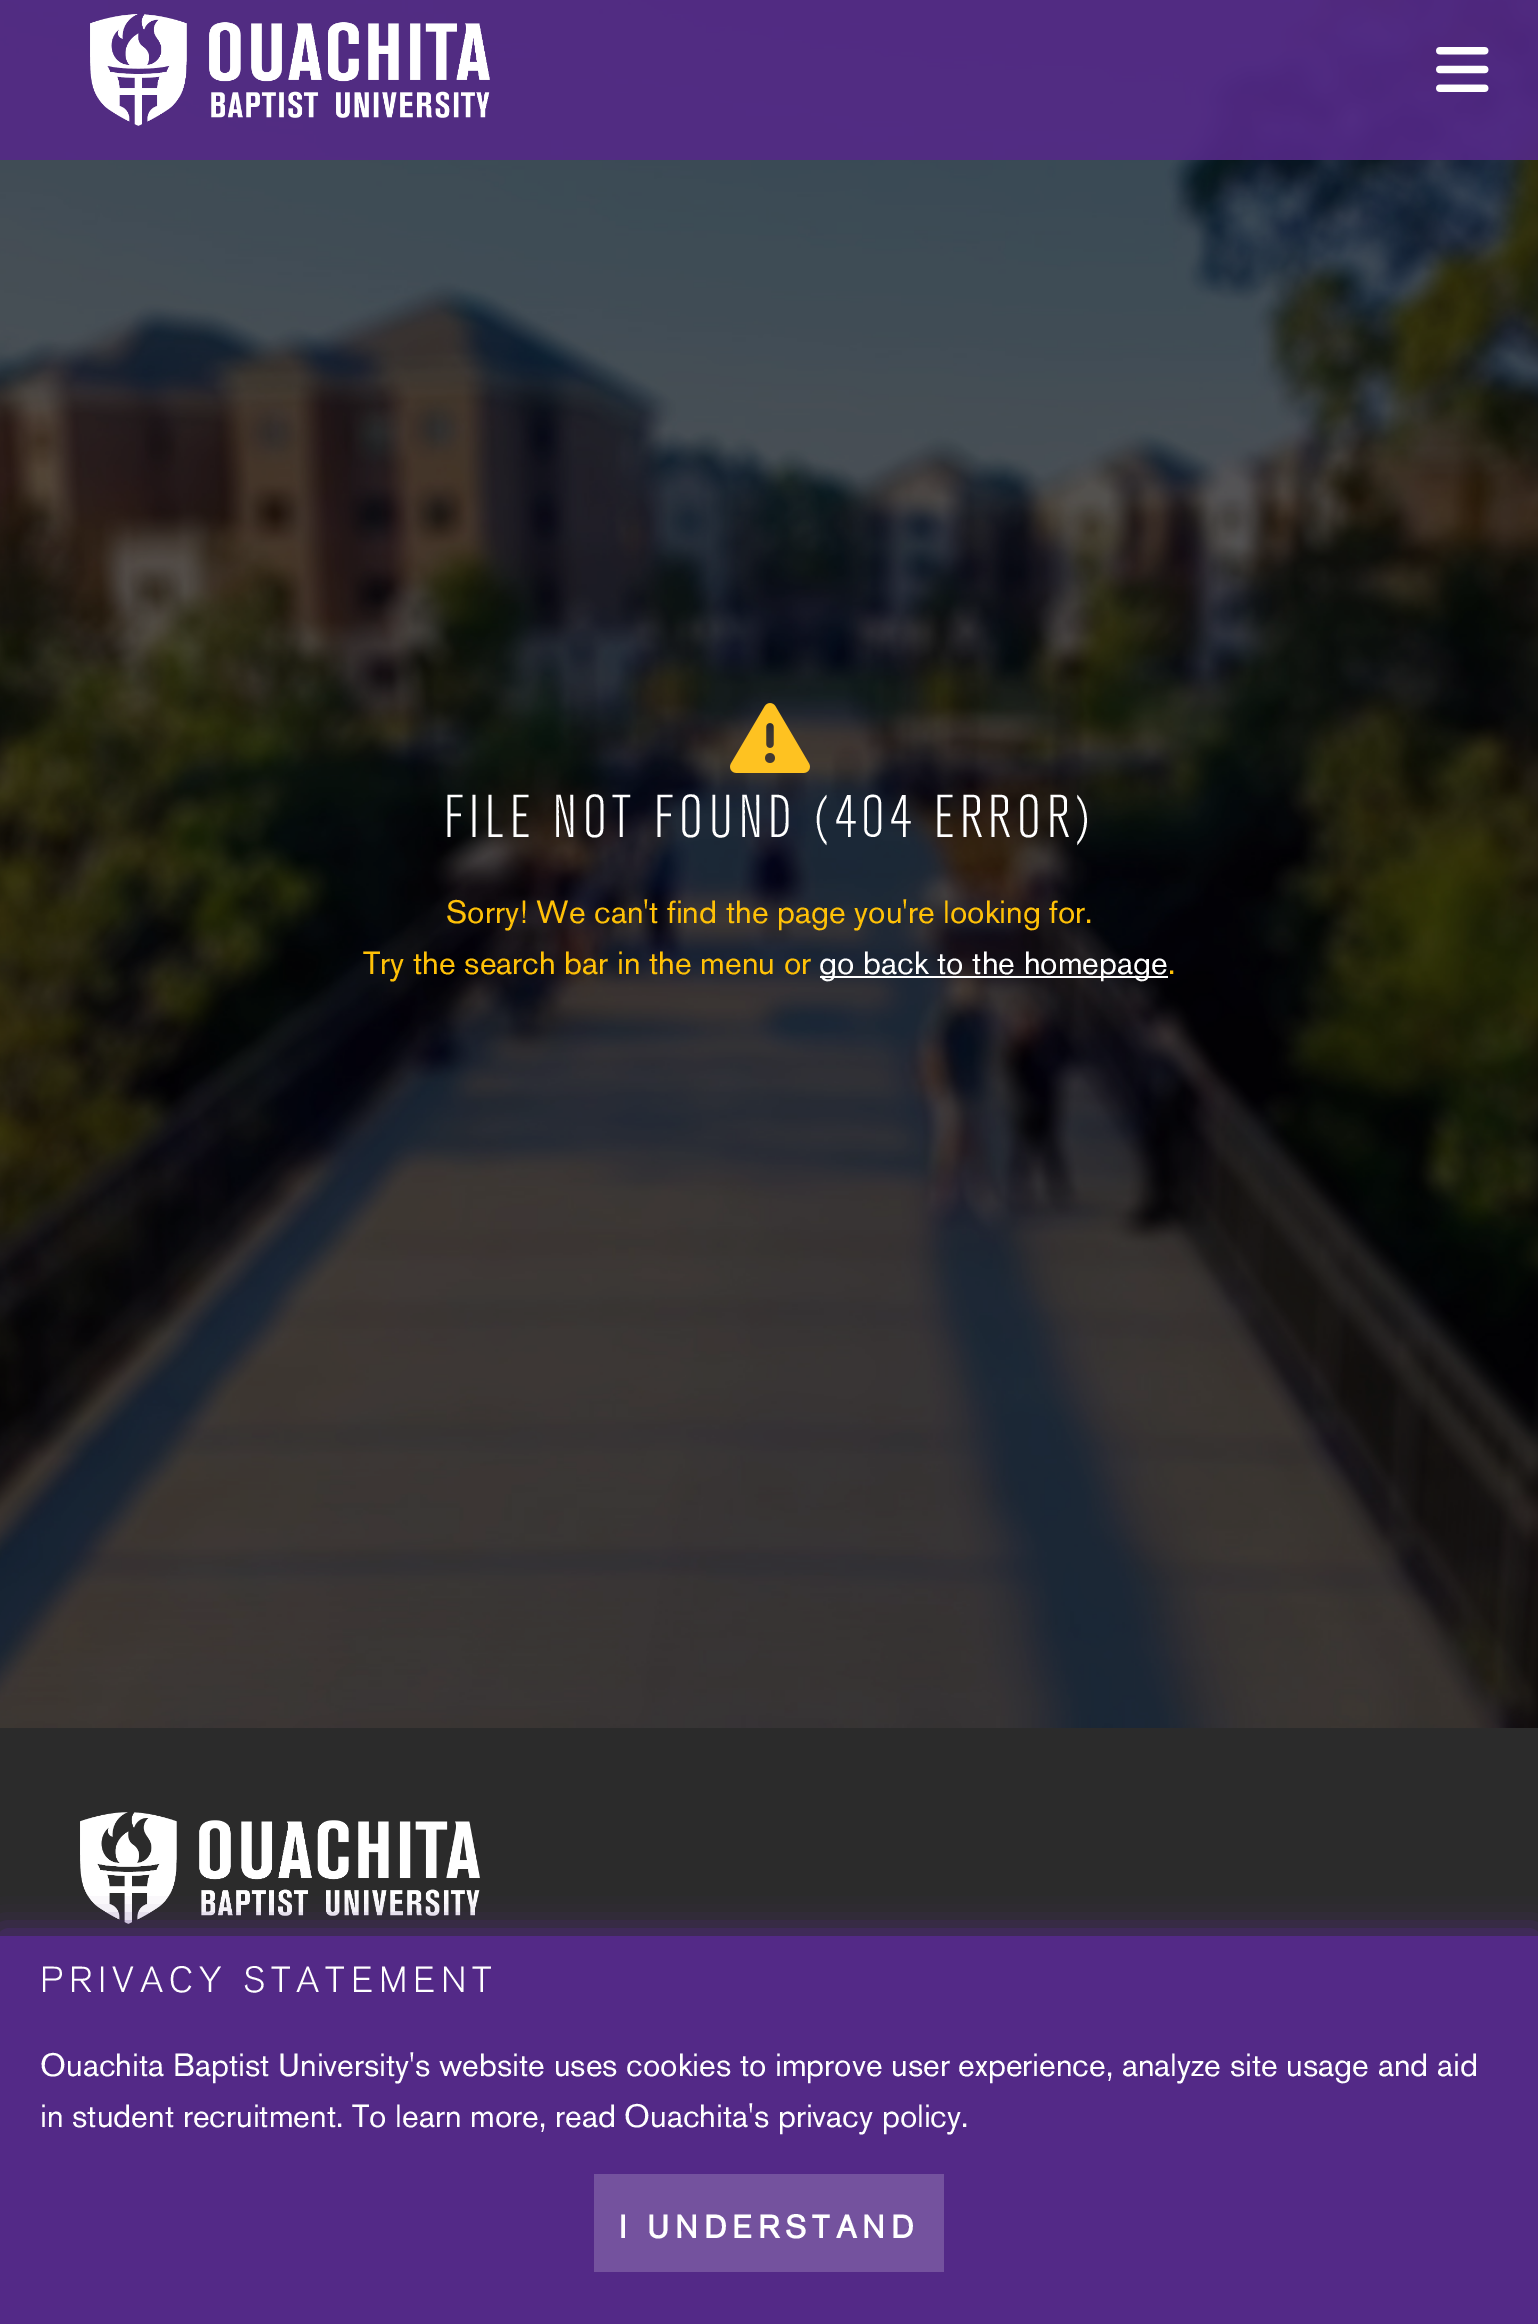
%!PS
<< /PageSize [1538 2324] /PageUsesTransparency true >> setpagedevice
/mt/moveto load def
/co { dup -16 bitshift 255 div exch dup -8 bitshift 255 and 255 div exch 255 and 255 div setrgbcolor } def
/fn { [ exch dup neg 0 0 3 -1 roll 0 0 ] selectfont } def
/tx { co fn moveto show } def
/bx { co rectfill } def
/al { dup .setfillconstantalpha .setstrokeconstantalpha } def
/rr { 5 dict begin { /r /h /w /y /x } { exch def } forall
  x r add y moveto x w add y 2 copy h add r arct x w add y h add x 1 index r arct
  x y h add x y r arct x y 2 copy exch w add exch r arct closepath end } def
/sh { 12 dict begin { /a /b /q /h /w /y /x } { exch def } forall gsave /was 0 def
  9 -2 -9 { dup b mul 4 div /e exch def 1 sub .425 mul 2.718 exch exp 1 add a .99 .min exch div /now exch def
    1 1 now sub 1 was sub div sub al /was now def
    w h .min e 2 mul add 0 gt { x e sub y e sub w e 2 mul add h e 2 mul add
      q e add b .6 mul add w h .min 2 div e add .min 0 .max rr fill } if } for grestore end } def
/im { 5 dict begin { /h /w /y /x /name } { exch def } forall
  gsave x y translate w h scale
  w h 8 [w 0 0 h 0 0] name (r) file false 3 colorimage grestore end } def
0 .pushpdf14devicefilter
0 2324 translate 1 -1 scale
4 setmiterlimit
0 0 1538 2324 16#FFFFFF bx
(media/3.raw) 0 0 1538 1728 im
0.89 al
0 0 1538 160 16#542888 bx
1 al
(media/1.raw) 90 14 400 112 im
(media/2.raw) 1436 47 53 45 im
(media/4.raw) 730 703 80 70 im
820 976 348 2 16#FFFFFF bx
0 1728 1538 208 16#2B2B2B bx
(media/5.raw) 80 1812 400 112 im
16#532987 co
0 1932 1538 388 0 16 1 sh
0 1936 1538 388 16#532987 bx
594 2174 350 98 16#74529E bx
/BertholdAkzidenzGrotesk-Light 60 fn
16#FFFFFF co
444 837 mt 6 0 (FILE NOT FOUND \(404 ERROR\)) ashow
(Sorry! We can't find the page you're looking for.) 446 923 /BertholdAkzidenzGrotesk-Regular 32 16#FFC107 tx
(Try the search bar in the menu or) 363 974 /BertholdAkzidenzGrotesk-Regular 32 16#FFC107 tx
(go back to the homepage) 819 974 /BertholdAkzidenzGrotesk-Regular 32 16#FFFFFF tx
(.) 1168 974 /BertholdAkzidenzGrotesk-Regular 32 16#FFC107 tx
/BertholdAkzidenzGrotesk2-Light 36 fn
16#FFFFFF co
40 1992 mt 6 0 (PRIVACY STATEMENT) ashow
(Ouachita Baptist University's website uses cookies to improve user experience, analyze site usage and aid) 40 2076 /BertholdAkzidenzGrotesk-Regular 32 16#FFFFFF tx
(in student recruitment. To learn more, read Ouachita's privacy policy.) 40 2127 /BertholdAkzidenzGrotesk-Regular 32 16#FFFFFF tx
/BertholdAkzidenzGrotesk-Bold 32 fn
619 2238 mt 6 0 (I UNDERSTAND) ashow
.poppdf14devicefilter showpage
